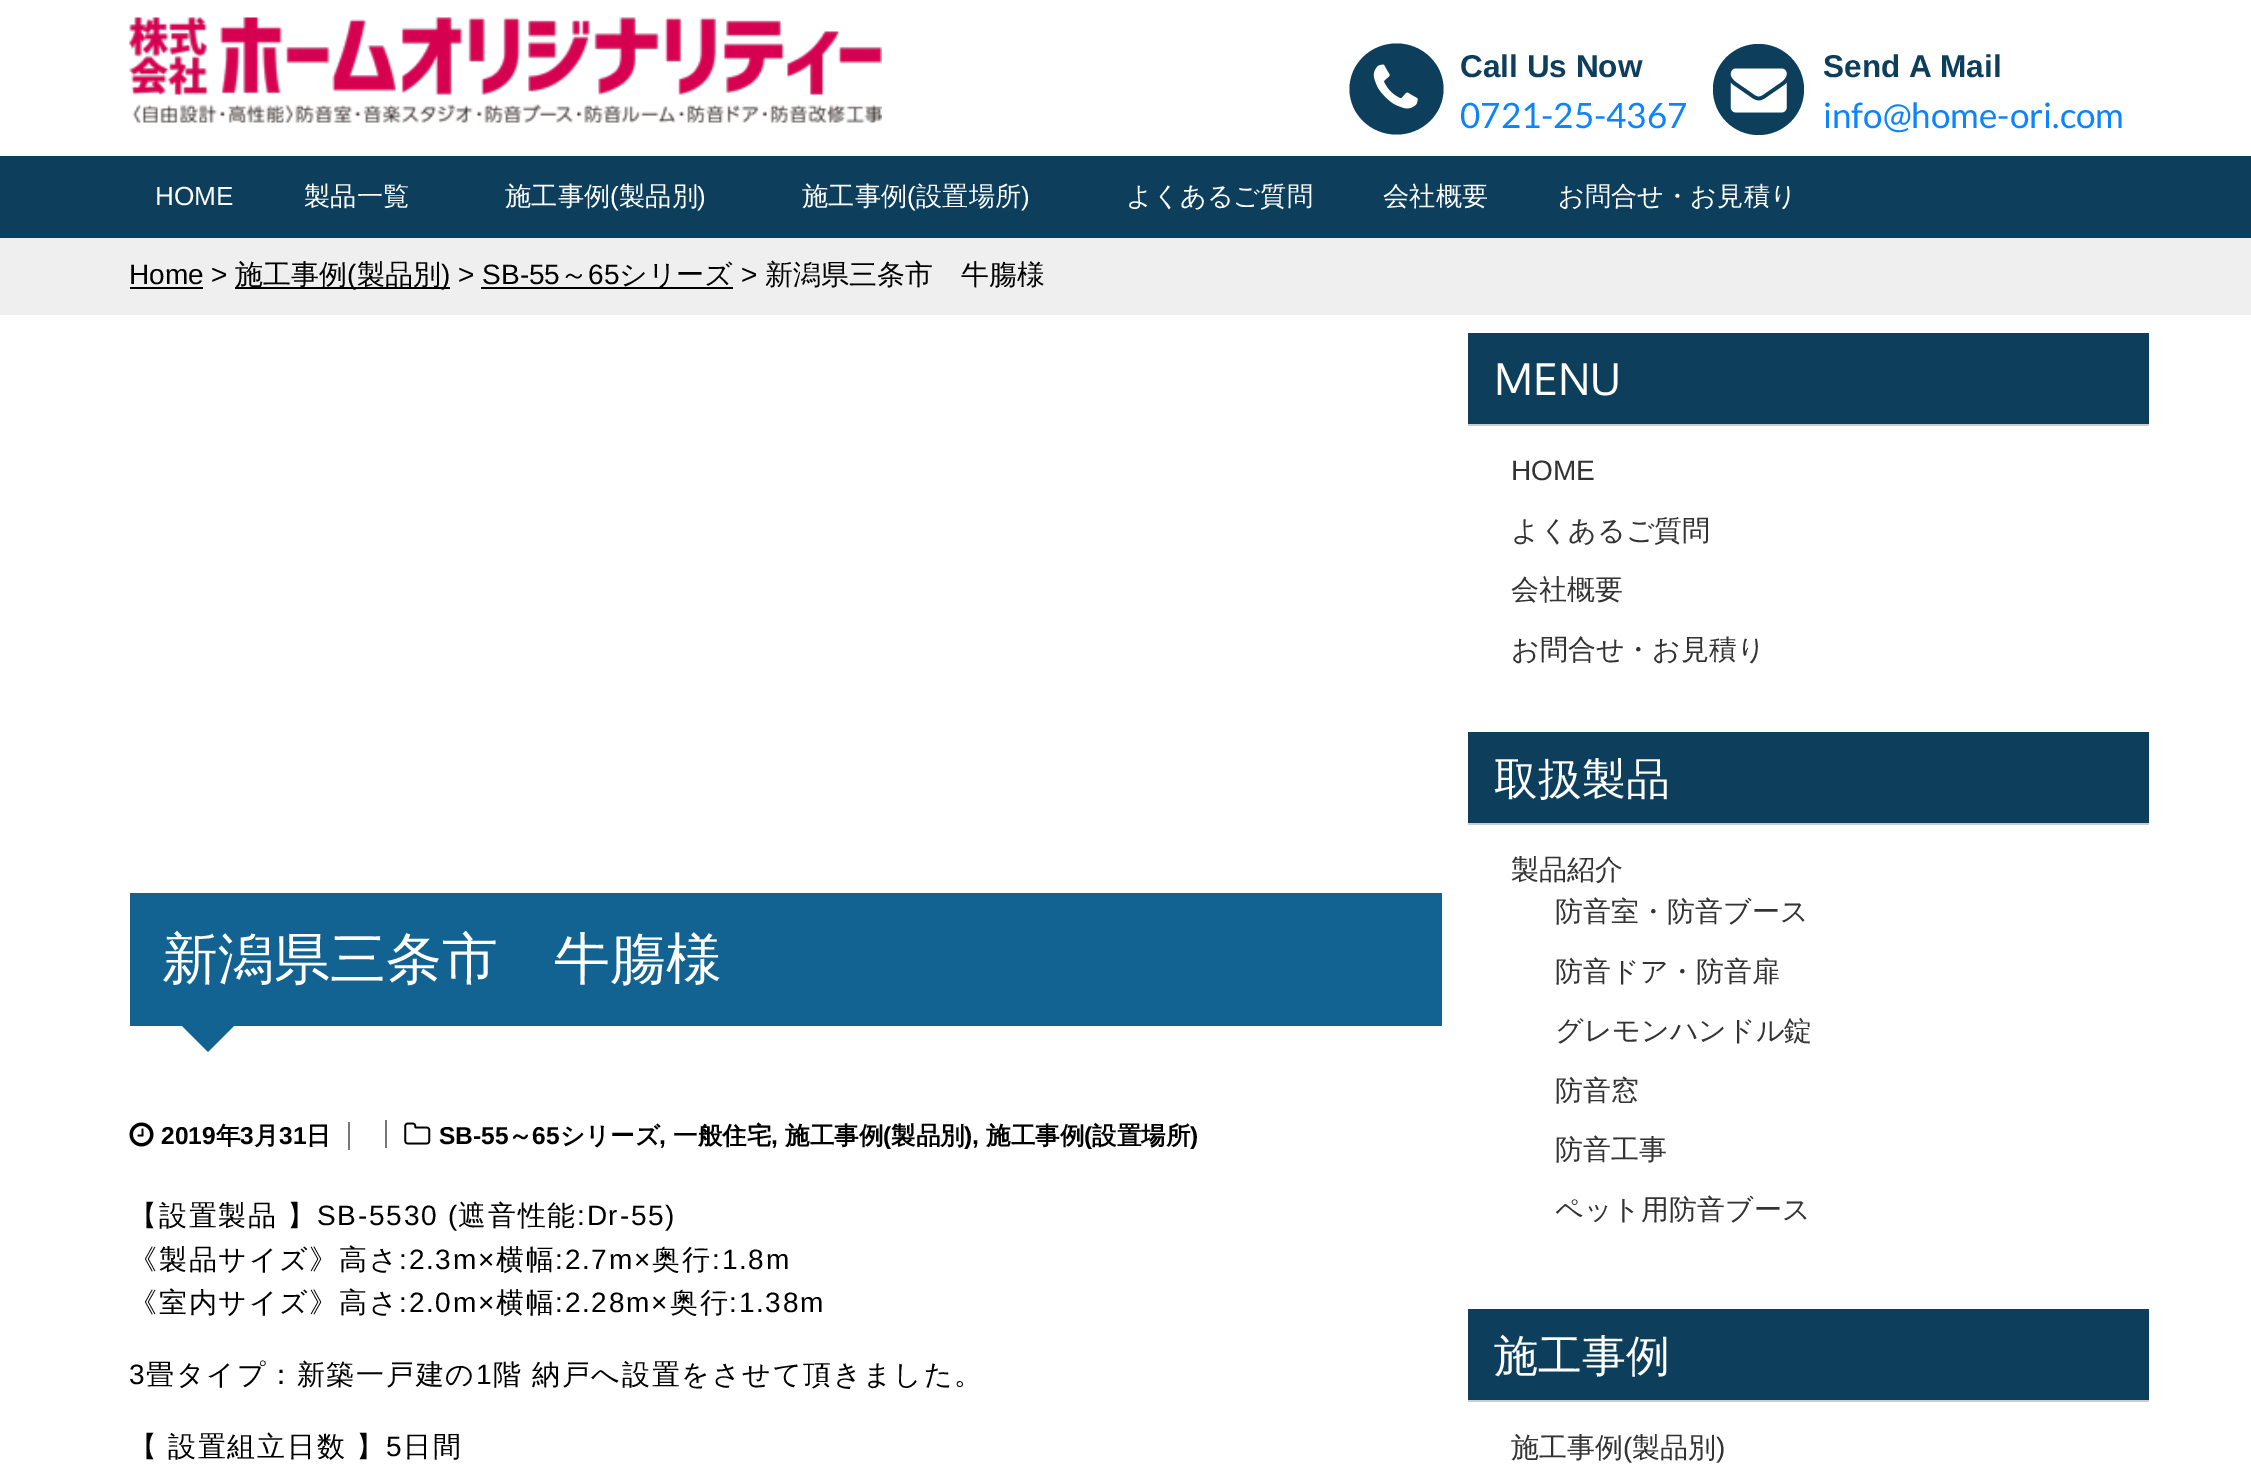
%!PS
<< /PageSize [2251 1472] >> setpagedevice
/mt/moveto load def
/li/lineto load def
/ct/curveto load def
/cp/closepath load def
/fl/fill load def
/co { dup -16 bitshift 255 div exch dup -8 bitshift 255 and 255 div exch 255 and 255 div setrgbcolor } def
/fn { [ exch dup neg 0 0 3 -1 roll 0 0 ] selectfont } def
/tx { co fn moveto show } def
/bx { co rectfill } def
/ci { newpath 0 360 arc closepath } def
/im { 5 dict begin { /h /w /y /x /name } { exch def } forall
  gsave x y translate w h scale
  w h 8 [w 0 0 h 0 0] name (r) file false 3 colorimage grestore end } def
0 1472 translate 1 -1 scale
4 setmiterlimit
0 0 2251 1472 16#FFFFFF bx
(media/1.raw) 129 17 753 106 im
16#0D3F5C co
1396.5 43.5 mt 1422.5 43.5 1443.5 64 1443.5 89 ct 1443.5 114 1422.5 134.5 1396.5 134.5 ct 1370.5 134.5 1349.5 114 1349.5 89 ct 1349.5 64 1370.5 43.5 1396.5 43.5 ct cp fl
(media/2.raw) 1373 64 45 45 im
1758.5 89.5 45.5 ci fl
(media/3.raw) 1730 68 57 45 im
0 156 2251 82 16#0D3F5C bx
0 238 2251 77 16#EFEFEF bx
130 287 73 2 16#000000 bx
235 287 215 2 16#000000 bx
481 287 252 2 16#000000 bx
130 893 1312 133 16#126392 bx
182 1026 mt 234 1026 li 208 1052 li cp fl
(media/4.raw) 129 1122 25 25 im
348 1122 2 28 16#777777 bx
(media/5.raw) 404 1122 27 23 im
385 1120 2 28 16#777777 bx
1468 333 681 91 16#0D3F5C bx
1468 424 681 2 16#CDCDCD bx
1468 732 681 91 16#0D3F5C bx
1468 823 681 2 16#CDCDCD bx
1468 1309 681 91 16#0D3F5C bx
1468 1400 681 2 16#CDCDCD bx
(Call Us Now) 1460 77 /LiberationSans-Bold 31.5 16#0D3F5C tx
(0721-25-4367) 1460 128 /Lato-Regular 35 16#0C83FF tx
(Send A Mail) 1823 77 /LiberationSans-Bold 31.5 16#0D3F5C tx
(info@home-ori.com) 1823 128 /Lato-Regular 35 16#0C83FF tx
(HOME) 155 205 /LiberationSans-Regular 26.25 16#FFFFFF tx
(製品一覧) 304 205 /WenQuanYiZenHei-Medium 26.25 16#FFFFFF tx
(施工事例) 505 205 /WenQuanYiZenHei-Medium 26.25 16#FFFFFF tx
(\() 610 205 /LiberationSans-Regular 26.25 16#FFFFFF tx
(製品別) 619 205 /WenQuanYiZenHei-Medium 26.25 16#FFFFFF tx
(\)) 697 205 /LiberationSans-Regular 26.25 16#FFFFFF tx
(施工事例) 802 205 /WenQuanYiZenHei-Medium 26.25 16#FFFFFF tx
(\() 907 205 /LiberationSans-Regular 26.25 16#FFFFFF tx
(設置場所) 916 205 /WenQuanYiZenHei-Medium 26.25 16#FFFFFF tx
(\)) 1021 205 /LiberationSans-Regular 26.25 16#FFFFFF tx
(よくあるご質問) 1126 205 /WenQuanYiZenHei-Medium 26.25 16#FFFFFF tx
(会社概要) 1383 205 /WenQuanYiZenHei-Medium 26.25 16#FFFFFF tx
(お問合せ・お見積り) 1558 205 /WenQuanYiZenHei-Medium 26.25 16#FFFFFF tx
(Home >) 129 284 /LiberationSans-Regular 28 16#000000 tx
(施工事例) 235 284 /WenQuanYiZenHei-Medium 28 16#000000 tx
(\() 347 284 /LiberationSans-Regular 28 16#000000 tx
(製品別) 357 284 /WenQuanYiZenHei-Medium 28 16#000000 tx
(\) > SB-55) 441 284 /LiberationSans-Regular 28 16#000000 tx
(～) 560 284 /WenQuanYiZenHei-Medium 28 16#000000 tx
(65) 588 284 /LiberationSans-Regular 28 16#000000 tx
(シリーズ) 619 284 /WenQuanYiZenHei-Medium 28 16#000000 tx
(>) 741 284 /LiberationSans-Regular 28 16#000000 tx
(新潟県三条市　牛膓様) 765 284 /WenQuanYiZenHei-Medium 28 16#000000 tx
(新潟県三条市　牛膓様) 162 978 /WenQuanYiZenHei-Medium 56 16#FFFFFF tx
(2019) 161 1144 /LiberationSans-Bold 24.5 16#000000 tx
(年) 216 1144 /WenQuanYiZenHei-Bold 24.5 16#000000 tx
(3) 240 1144 /LiberationSans-Bold 24.5 16#000000 tx
(月) 254 1144 /WenQuanYiZenHei-Bold 24.5 16#000000 tx
(31) 279 1144 /LiberationSans-Bold 24.5 16#000000 tx
(日) 306 1144 /WenQuanYiZenHei-Bold 24.5 16#000000 tx
(SB-55) 439 1144 /LiberationSans-Bold 24.5 16#000000 tx
(～) 508 1144 /WenQuanYiZenHei-Bold 24.5 16#000000 tx
(65) 532 1144 /LiberationSans-Bold 24.5 16#000000 tx
(シリーズ) 560 1144 /WenQuanYiZenHei-Bold 24.5 16#000000 tx
(一般住宅) 673 1144 /WenQuanYiZenHei-Bold 24.5 16#000000 tx
(施工事例) 785 1144 /WenQuanYiZenHei-Bold 24.5 16#000000 tx
(\() 883 1144 /LiberationSans-Bold 24.5 16#000000 tx
(製品別) 891 1144 /WenQuanYiZenHei-Bold 24.5 16#000000 tx
(\),) 964 1144 /LiberationSans-Bold 24.5 16#000000 tx
(施工事例) 986 1144 /WenQuanYiZenHei-Bold 24.5 16#000000 tx
(\() 1084 1144 /LiberationSans-Bold 24.5 16#000000 tx
(設置場所) 1092 1144 /WenQuanYiZenHei-Bold 24.5 16#000000 tx
(\)) 1190 1144 /LiberationSans-Bold 24.5 16#000000 tx
(,) 659 1144 /LiberationSans-Bold 24.5 16#000000 tx
(,) 771 1144 /LiberationSans-Bold 24.5 16#000000 tx
/WenQuanYiZenHei-Medium 28 fn
129 1225 mt 1.75 0 (【設置製品) ashow
287 1225 mt 1.75 0 (】) ashow
/LiberationSans-Regular 28 fn
317 1225 mt 1.75 0 (SB-5530 \() ashow
/WenQuanYiZenHei-Medium 28 fn
458 1225 mt 1.75 0 (遮音性能) ashow
/LiberationSans-Regular 28 fn
577 1225 mt 1.75 0 (:Dr-55\)) ashow
/WenQuanYiZenHei-Medium 28 fn
129 1269 mt 1.75 0 (《製品サイズ》高さ) ashow
/LiberationSans-Regular 28 fn
399 1269 mt 1.75 0 (:2.3m×) ashow
/WenQuanYiZenHei-Medium 28 fn
496 1269 mt 1.75 0 (横幅) ashow
/LiberationSans-Regular 28 fn
555 1269 mt 1.75 0 (:2.7m×) ashow
/WenQuanYiZenHei-Medium 28 fn
652 1269 mt 1.75 0 (奥行) ashow
/LiberationSans-Regular 28 fn
712 1269 mt 1.75 0 (:1.8m) ashow
/WenQuanYiZenHei-Medium 28 fn
129 1312 mt 1.75 0 (《室内サイズ》高さ) ashow
/LiberationSans-Regular 28 fn
399 1312 mt 1.75 0 (:2.0m×) ashow
/WenQuanYiZenHei-Medium 28 fn
496 1312 mt 1.75 0 (横幅) ashow
/LiberationSans-Regular 28 fn
555 1312 mt 1.75 0 (:2.28m×) ashow
/WenQuanYiZenHei-Medium 28 fn
670 1312 mt 1.75 0 (奥行) ashow
/LiberationSans-Regular 28 fn
729 1312 mt 1.75 0 (:1.38m) ashow
129 1384 mt 1.75 0 (3) ashow
/WenQuanYiZenHei-Medium 28 fn
146 1384 mt 1.75 0 (畳タイプ：新築一戸建の) ashow
/LiberationSans-Regular 28 fn
476 1384 mt 1.75 0 (1) ashow
/WenQuanYiZenHei-Medium 28 fn
493 1384 mt -1 0 32 1.75 0 (階 納戸へ設置をさせて頂きました。) awidthshow
129 1456 mt -1 0 32 1.75 0 (【 設置組立日数 】) awidthshow
/LiberationSans-Regular 28 fn
386 1456 mt 1.75 0 (5) ashow
/WenQuanYiZenHei-Medium 28 fn
403 1456 mt 1.75 0 (日間) ashow
(MENU) 1494 395 /Oxygen-Regular 44 16#FFFFFF tx
(HOME) 1511 480 /LiberationSans-Regular 28 16#333333 tx
(よくあるご質問) 1511 540 /WenQuanYiZenHei-Medium 28 16#333333 tx
(会社概要) 1511 599 /WenQuanYiZenHei-Medium 28 16#333333 tx
(お問合せ・お見積り) 1511 659 /WenQuanYiZenHei-Medium 28 16#333333 tx
(取扱製品) 1494 794 /WenQuanYiZenHei-Medium 44 16#FFFFFF tx
(製品紹介) 1511 879 /WenQuanYiZenHei-Medium 28 16#333333 tx
(防音室・防音ブース) 1555 921 /WenQuanYiZenHei-Medium 28 16#333333 tx
(防音ドア・防音扉) 1555 981 /WenQuanYiZenHei-Medium 28 16#333333 tx
(グレモンハンドル錠) 1555 1040 /WenQuanYiZenHei-Medium 28 16#333333 tx
(防音窓) 1555 1100 /WenQuanYiZenHei-Medium 28 16#333333 tx
(防音工事) 1555 1159 /WenQuanYiZenHei-Medium 28 16#333333 tx
(ペット用防音ブース) 1555 1219 /WenQuanYiZenHei-Medium 28 16#333333 tx
(施工事例) 1494 1371 /WenQuanYiZenHei-Medium 44 16#FFFFFF tx
(施工事例) 1511 1457 /WenQuanYiZenHei-Medium 28 16#333333 tx
(\() 1623 1457 /LiberationSans-Regular 28 16#333333 tx
(製品別) 1632 1457 /WenQuanYiZenHei-Medium 28 16#333333 tx
(\)) 1716 1457 /LiberationSans-Regular 28 16#333333 tx
showpage
